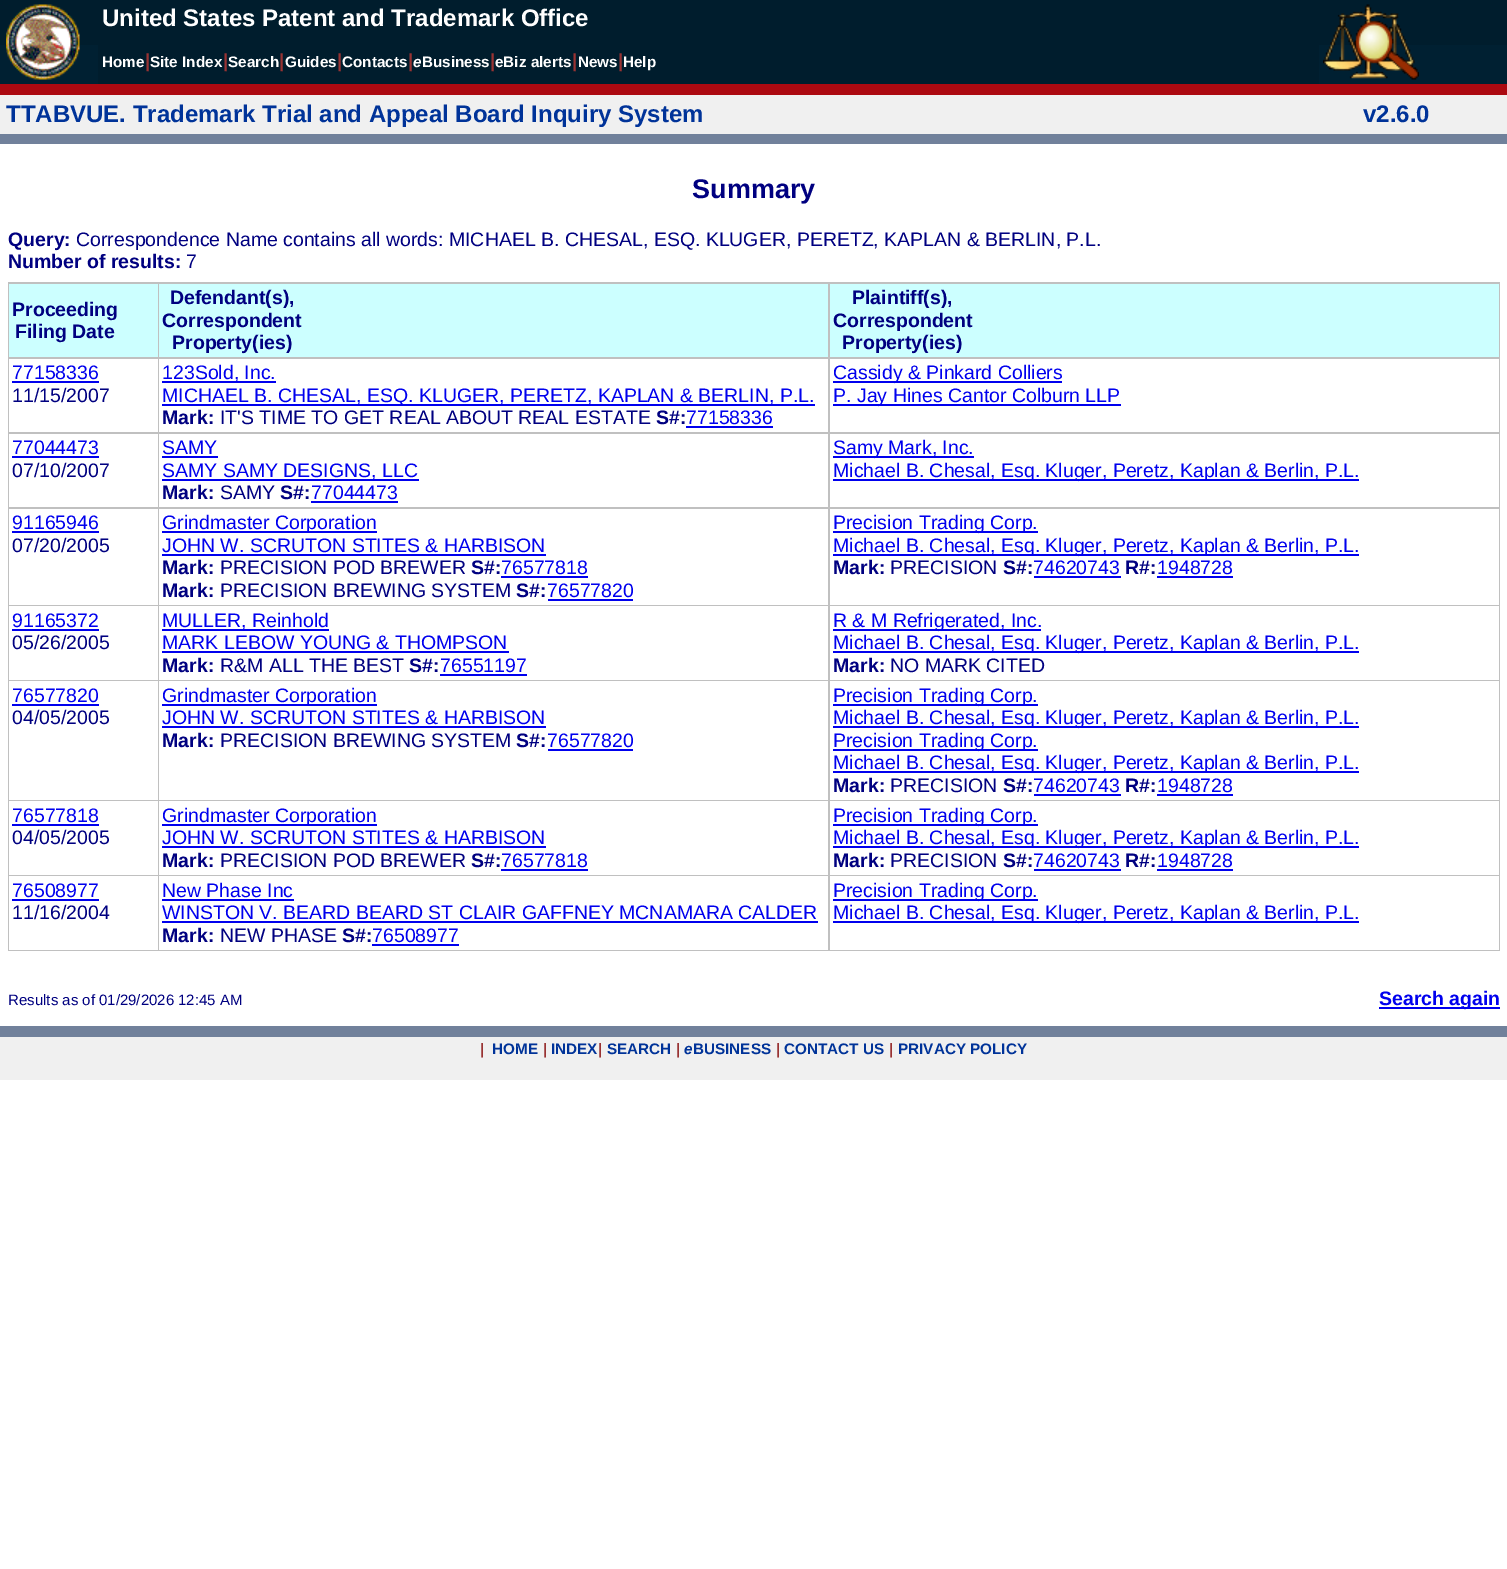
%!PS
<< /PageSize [1507 1569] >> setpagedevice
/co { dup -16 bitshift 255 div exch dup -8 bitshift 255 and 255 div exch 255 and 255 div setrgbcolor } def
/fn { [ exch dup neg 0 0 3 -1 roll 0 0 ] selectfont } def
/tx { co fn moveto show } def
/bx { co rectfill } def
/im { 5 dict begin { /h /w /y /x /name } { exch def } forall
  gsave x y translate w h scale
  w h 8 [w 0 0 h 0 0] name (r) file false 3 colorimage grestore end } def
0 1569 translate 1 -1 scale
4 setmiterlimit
0 0 1507 1569 16#FFFFFF bx
0 0 1507 45 16#001D2D bx
0 45 1507 39 16#002032 bx
(media/1.raw) 6 4 74 76 im
(media/2.raw) 1323 4 96 76 im
98 45 1221 39 16#001D2D bx
0 84 1507 11 16#AC0911 bx
0 95 1507 39 16#F0F0F0 bx
0 134 1507 10 16#71819B bx
8 282 1492 669 16#C0C0C0 bx
9 284 149 73 16#CCFFFF bx
159 284 669 73 16#CCFFFF bx
830 284 669 73 16#CCFFFF bx
9 359 149 73 16#FFFFFF bx
12 381 87 2 16#0000EE bx
159 359 669 73 16#FFFFFF bx
162 381 114 2 16#0000EE bx
162 404 653 2 16#0000EE bx
686 426 87 2 16#0000EE bx
830 359 669 73 16#FFFFFF bx
833 381 229 2 16#0000EE bx
833 404 288 2 16#0000EE bx
9 434 149 73 16#FFFFFF bx
12 456 87 2 16#0000EE bx
159 434 669 73 16#FFFFFF bx
162 456 56 2 16#0000EE bx
162 479 257 2 16#0000EE bx
311 501 87 2 16#0000EE bx
830 434 669 73 16#FFFFFF bx
833 456 141 2 16#0000EE bx
833 479 526 2 16#0000EE bx
9 509 149 96 16#FFFFFF bx
12 531 87 2 16#0000EE bx
159 509 669 96 16#FFFFFF bx
162 531 215 2 16#0000EE bx
162 554 384 2 16#0000EE bx
501 576 87 2 16#0000EE bx
548 599 85 2 16#0000EE bx
830 509 669 96 16#FFFFFF bx
833 531 205 2 16#0000EE bx
833 554 526 2 16#0000EE bx
1034 576 87 2 16#0000EE bx
1157 576 76 2 16#0000EE bx
9 606 149 74 16#FFFFFF bx
12 629 87 2 16#0000EE bx
159 606 669 74 16#FFFFFF bx
162 629 167 2 16#0000EE bx
162 651 347 2 16#0000EE bx
440 674 87 2 16#0000EE bx
830 606 669 74 16#FFFFFF bx
833 629 208 2 16#0000EE bx
833 651 526 2 16#0000EE bx
9 681 149 119 16#FFFFFF bx
12 704 87 2 16#0000EE bx
159 681 669 119 16#FFFFFF bx
162 704 215 2 16#0000EE bx
162 726 384 2 16#0000EE bx
548 749 85 2 16#0000EE bx
830 681 669 119 16#FFFFFF bx
833 704 205 2 16#0000EE bx
833 726 526 2 16#0000EE bx
833 749 205 2 16#0000EE bx
833 771 526 2 16#0000EE bx
1034 794 87 2 16#0000EE bx
1157 794 76 2 16#0000EE bx
9 801 149 74 16#FFFFFF bx
12 824 87 2 16#0000EE bx
159 801 669 74 16#FFFFFF bx
162 824 215 2 16#0000EE bx
162 846 384 2 16#0000EE bx
501 869 87 2 16#0000EE bx
830 801 669 74 16#FFFFFF bx
833 824 205 2 16#0000EE bx
833 846 526 2 16#0000EE bx
1034 869 87 2 16#0000EE bx
1157 869 76 2 16#0000EE bx
9 876 149 74 16#FFFFFF bx
12 899 87 2 16#0000EE bx
159 876 669 74 16#FFFFFF bx
162 899 132 2 16#0000EE bx
162 921 656 2 16#0000EE bx
372 944 87 2 16#0000EE bx
830 876 669 74 16#FFFFFF bx
833 899 205 2 16#0000EE bx
833 921 526 2 16#0000EE bx
1379 1007 121 2 16#0000EE bx
0 1026 1507 11 16#71819B bx
0 1037 1507 43 16#F0F0F0 bx
(United States Patent and Trademark Office) 102 26 /LiberationSans-Bold 24 16#FFFFFF tx
(Home) 102 67 /LiberationSans-Bold 15.25 16#FFFFFF tx
(|) 145 67 /LiberationSans-Bold 19 16#993333 tx
(Site Index) 150 67 /LiberationSans-Bold 15.25 16#FFFFFF tx
(|) 223 67 /LiberationSans-Bold 19 16#993333 tx
(Search) 228 67 /LiberationSans-Bold 15.25 16#FFFFFF tx
(|) 279 67 /LiberationSans-Bold 19 16#993333 tx
(Guides) 285 67 /LiberationSans-Bold 15.25 16#FFFFFF tx
(|) 337 67 /LiberationSans-Bold 19 16#993333 tx
(Contacts) 342 67 /LiberationSans-Bold 15.25 16#FFFFFF tx
(|) 408 67 /LiberationSans-Bold 19 16#993333 tx
(e) 413 67 /LiberationSans-BoldItalic 15.25 16#FFFFFF tx
(Business) 422 67 /LiberationSans-Bold 15.25 16#FFFFFF tx
(|) 490 67 /LiberationSans-Bold 19 16#993333 tx
(eBiz alerts) 495 67 /LiberationSans-Bold 15.25 16#FFFFFF tx
(|) 572 67 /LiberationSans-Bold 19 16#993333 tx
(News) 578 67 /LiberationSans-Bold 15.25 16#FFFFFF tx
(|) 618 67 /LiberationSans-Bold 19 16#993333 tx
(Help) 623 67 /LiberationSans-Bold 15.25 16#FFFFFF tx
(TTABVUE. Trademark Trial and Appeal Board Inquiry System) 6 122 /LiberationSans-Bold 24 16#003399 tx
(v2.6.0) 1363 122 /LiberationSans-Bold 24 16#003399 tx
(Summary) 692 198 /LiberationSans-Bold 27 16#000080 tx
(Query:) 8 246 /LiberationSans-Bold 19.5 16#000080 tx
(Correspondence Name contains all words: MICHAEL B. CHESAL, ESQ. KLUGER, PERETZ, KAPLAN & BERLIN, P.L.) 76 246 /LiberationSans-Regular 19.5 16#000080 tx
(Number of results:) 8 268 /LiberationSans-Bold 19.5 16#000080 tx
(7) 186 268 /LiberationSans-Regular 19.5 16#000080 tx
(Proceeding) 12 316 /LiberationSans-Bold 19.5 16#000080 tx
(Filing Date) 15 338 /LiberationSans-Bold 19.5 16#000080 tx
(Defendant\(s\),) 170 304 /LiberationSans-Bold 19.5 16#000080 tx
(Correspondent) 162 327 /LiberationSans-Bold 19.5 16#000080 tx
(Property\(ies\)) 172 349 /LiberationSans-Bold 19.5 16#000080 tx
(Plaintiff\(s\),) 852 304 /LiberationSans-Bold 19.5 16#000080 tx
(Correspondent) 833 327 /LiberationSans-Bold 19.5 16#000080 tx
(Property\(ies\)) 842 349 /LiberationSans-Bold 19.5 16#000080 tx
(77158336) 12 379 /LiberationSans-Regular 19.5 16#0000EE tx
(11/15/2007) 12 402 /LiberationSans-Regular 19.5 16#000080 tx
(123Sold, Inc.) 162 379 /LiberationSans-Regular 19.5 16#0000EE tx
(MICHAEL B. CHESAL, ESQ. KLUGER, PERETZ, KAPLAN & BERLIN, P.L.) 162 402 /LiberationSans-Regular 19.5 16#0000EE tx
(Mark:) 162 424 /LiberationSans-Bold 19.5 16#000080 tx
(IT'S TIME TO GET REAL ABOUT REAL ESTATE) 220 424 /LiberationSans-Regular 19.5 16#000080 tx
(S#:) 656 424 /LiberationSans-Bold 19.5 16#000080 tx
(77158336) 686 424 /LiberationSans-Regular 19.5 16#0000EE tx
(Cassidy & Pinkard Colliers) 833 379 /LiberationSans-Regular 19.5 16#0000EE tx
(P. Jay Hines Cantor Colburn LLP) 833 402 /LiberationSans-Regular 19.5 16#0000EE tx
(77044473) 12 454 /LiberationSans-Regular 19.5 16#0000EE tx
(07/10/2007) 12 477 /LiberationSans-Regular 19.5 16#000080 tx
(SAMY) 162 454 /LiberationSans-Regular 19.5 16#0000EE tx
(SAMY SAMY DESIGNS, LLC) 162 477 /LiberationSans-Regular 19.5 16#0000EE tx
(Mark:) 162 499 /LiberationSans-Bold 19.5 16#000080 tx
(SAMY) 220 499 /LiberationSans-Regular 19.5 16#000080 tx
(S#:) 280 499 /LiberationSans-Bold 19.5 16#000080 tx
(77044473) 311 499 /LiberationSans-Regular 19.5 16#0000EE tx
(Samy Mark, Inc.) 833 454 /LiberationSans-Regular 19.5 16#0000EE tx
(Michael B. Chesal, Esq. Kluger, Peretz, Kaplan & Berlin, P.L.) 833 477 /LiberationSans-Regular 19.5 16#0000EE tx
(91165946) 12 529 /LiberationSans-Regular 19.5 16#0000EE tx
(07/20/2005) 12 552 /LiberationSans-Regular 19.5 16#000080 tx
(Grindmaster Corporation) 162 529 /LiberationSans-Regular 19.5 16#0000EE tx
(JOHN W. SCRUTON STITES & HARBISON) 162 552 /LiberationSans-Regular 19.5 16#0000EE tx
(Mark:) 162 574 /LiberationSans-Bold 19.5 16#000080 tx
(PRECISION POD BREWER) 220 574 /LiberationSans-Regular 19.5 16#000080 tx
(S#:) 471 574 /LiberationSans-Bold 19.5 16#000080 tx
(76577818) 501 574 /LiberationSans-Regular 19.5 16#0000EE tx
(Mark:) 162 597 /LiberationSans-Bold 19.5 16#000080 tx
(PRECISION BREWING SYSTEM) 220 597 /LiberationSans-Regular 19.5 16#000080 tx
(S#:) 516 597 /LiberationSans-Bold 19.5 16#000080 tx
(76577820) 547 597 /LiberationSans-Regular 19.5 16#0000EE tx
(Precision Trading Corp.) 833 529 /LiberationSans-Regular 19.5 16#0000EE tx
(Michael B. Chesal, Esq. Kluger, Peretz, Kaplan & Berlin, P.L.) 833 552 /LiberationSans-Regular 19.5 16#0000EE tx
(Mark:) 833 574 /LiberationSans-Bold 19.5 16#000080 tx
(PRECISION) 890 574 /LiberationSans-Regular 19.5 16#000080 tx
(S#:) 1003 574 /LiberationSans-Bold 19.5 16#000080 tx
(74620743) 1033 574 /LiberationSans-Regular 19.5 16#0000EE tx
(R#:) 1125 574 /LiberationSans-Bold 19.5 16#000080 tx
(1948728) 1157 574 /LiberationSans-Regular 19.5 16#0000EE tx
(91165372) 12 627 /LiberationSans-Regular 19.5 16#0000EE tx
(05/26/2005) 12 649 /LiberationSans-Regular 19.5 16#000080 tx
(MULLER, Reinhold) 162 627 /LiberationSans-Regular 19.5 16#0000EE tx
(MARK LEBOW YOUNG & THOMPSON) 162 649 /LiberationSans-Regular 19.5 16#0000EE tx
(Mark:) 162 672 /LiberationSans-Bold 19.5 16#000080 tx
(R&M ALL THE BEST) 220 672 /LiberationSans-Regular 19.5 16#000080 tx
(S#:) 409 672 /LiberationSans-Bold 19.5 16#000080 tx
(76551197) 440 672 /LiberationSans-Regular 19.5 16#0000EE tx
(R & M Refrigerated, Inc.) 833 627 /LiberationSans-Regular 19.5 16#0000EE tx
(Michael B. Chesal, Esq. Kluger, Peretz, Kaplan & Berlin, P.L.) 833 649 /LiberationSans-Regular 19.5 16#0000EE tx
(Mark:) 833 672 /LiberationSans-Bold 19.5 16#000080 tx
(NO MARK CITED) 890 672 /LiberationSans-Regular 19.5 16#000080 tx
(76577820) 12 702 /LiberationSans-Regular 19.5 16#0000EE tx
(04/05/2005) 12 724 /LiberationSans-Regular 19.5 16#000080 tx
(Grindmaster Corporation) 162 702 /LiberationSans-Regular 19.5 16#0000EE tx
(JOHN W. SCRUTON STITES & HARBISON) 162 724 /LiberationSans-Regular 19.5 16#0000EE tx
(Mark:) 162 747 /LiberationSans-Bold 19.5 16#000080 tx
(PRECISION BREWING SYSTEM) 220 747 /LiberationSans-Regular 19.5 16#000080 tx
(S#:) 516 747 /LiberationSans-Bold 19.5 16#000080 tx
(76577820) 547 747 /LiberationSans-Regular 19.5 16#0000EE tx
(Precision Trading Corp.) 833 702 /LiberationSans-Regular 19.5 16#0000EE tx
(Michael B. Chesal, Esq. Kluger, Peretz, Kaplan & Berlin, P.L.) 833 724 /LiberationSans-Regular 19.5 16#0000EE tx
(Precision Trading Corp.) 833 747 /LiberationSans-Regular 19.5 16#0000EE tx
(Michael B. Chesal, Esq. Kluger, Peretz, Kaplan & Berlin, P.L.) 833 769 /LiberationSans-Regular 19.5 16#0000EE tx
(Mark:) 833 792 /LiberationSans-Bold 19.5 16#000080 tx
(PRECISION) 890 792 /LiberationSans-Regular 19.5 16#000080 tx
(S#:) 1003 792 /LiberationSans-Bold 19.5 16#000080 tx
(74620743) 1033 792 /LiberationSans-Regular 19.5 16#0000EE tx
(R#:) 1125 792 /LiberationSans-Bold 19.5 16#000080 tx
(1948728) 1157 792 /LiberationSans-Regular 19.5 16#0000EE tx
(76577818) 12 822 /LiberationSans-Regular 19.5 16#0000EE tx
(04/05/2005) 12 844 /LiberationSans-Regular 19.5 16#000080 tx
(Grindmaster Corporation) 162 822 /LiberationSans-Regular 19.5 16#0000EE tx
(JOHN W. SCRUTON STITES & HARBISON) 162 844 /LiberationSans-Regular 19.5 16#0000EE tx
(Mark:) 162 867 /LiberationSans-Bold 19.5 16#000080 tx
(PRECISION POD BREWER) 220 867 /LiberationSans-Regular 19.5 16#000080 tx
(S#:) 471 867 /LiberationSans-Bold 19.5 16#000080 tx
(76577818) 501 867 /LiberationSans-Regular 19.5 16#0000EE tx
(Precision Trading Corp.) 833 822 /LiberationSans-Regular 19.5 16#0000EE tx
(Michael B. Chesal, Esq. Kluger, Peretz, Kaplan & Berlin, P.L.) 833 844 /LiberationSans-Regular 19.5 16#0000EE tx
(Mark:) 833 867 /LiberationSans-Bold 19.5 16#000080 tx
(PRECISION) 890 867 /LiberationSans-Regular 19.5 16#000080 tx
(S#:) 1003 867 /LiberationSans-Bold 19.5 16#000080 tx
(74620743) 1033 867 /LiberationSans-Regular 19.5 16#0000EE tx
(R#:) 1125 867 /LiberationSans-Bold 19.5 16#000080 tx
(1948728) 1157 867 /LiberationSans-Regular 19.5 16#0000EE tx
(76508977) 12 897 /LiberationSans-Regular 19.5 16#0000EE tx
(11/16/2004) 12 919 /LiberationSans-Regular 19.5 16#000080 tx
(New Phase Inc) 162 897 /LiberationSans-Regular 19.5 16#0000EE tx
(WINSTON V. BEARD BEARD ST CLAIR GAFFNEY MCNAMARA CALDER) 162 919 /LiberationSans-Regular 19.5 16#0000EE tx
(Mark:) 162 942 /LiberationSans-Bold 19.5 16#000080 tx
(NEW PHASE) 220 942 /LiberationSans-Regular 19.5 16#000080 tx
(S#:) 342 942 /LiberationSans-Bold 19.5 16#000080 tx
(76508977) 372 942 /LiberationSans-Regular 19.5 16#0000EE tx
(Precision Trading Corp.) 833 897 /LiberationSans-Regular 19.5 16#0000EE tx
(Michael B. Chesal, Esq. Kluger, Peretz, Kaplan & Berlin, P.L.) 833 919 /LiberationSans-Regular 19.5 16#0000EE tx
(Results as of 01/29/2026 12:45 AM) 8 1005 /LiberationSans-Regular 15 16#000080 tx
(Search again) 1379 1005 /LiberationSans-Bold 19.5 16#0000EE tx
(|) 480 1054 /LiberationSans-Bold 15.25 16#993333 tx
(HOME) 492 1054 /LiberationSans-Bold 15.25 16#003399 tx
(|) 543 1054 /LiberationSans-Bold 15.25 16#993333 tx
(INDEX) 551 1054 /LiberationSans-Bold 15.25 16#003399 tx
(|) 598 1054 /LiberationSans-Bold 15.25 16#993333 tx
(SEARCH) 607 1054 /LiberationSans-Bold 15.25 16#003399 tx
(|) 676 1054 /LiberationSans-Bold 15.25 16#993333 tx
(e) 684 1054 /LiberationSans-BoldItalic 15.25 16#003399 tx
(BUSINESS) 693 1054 /LiberationSans-Bold 15.25 16#003399 tx
(|) 776 1054 /LiberationSans-Bold 15.25 16#993333 tx
(CONTACT US) 784 1054 /LiberationSans-Bold 15.25 16#003399 tx
(|) 889 1054 /LiberationSans-Bold 15.25 16#993333 tx
(PRIVACY POLICY) 898 1054 /LiberationSans-Bold 15.25 16#003399 tx
showpage
